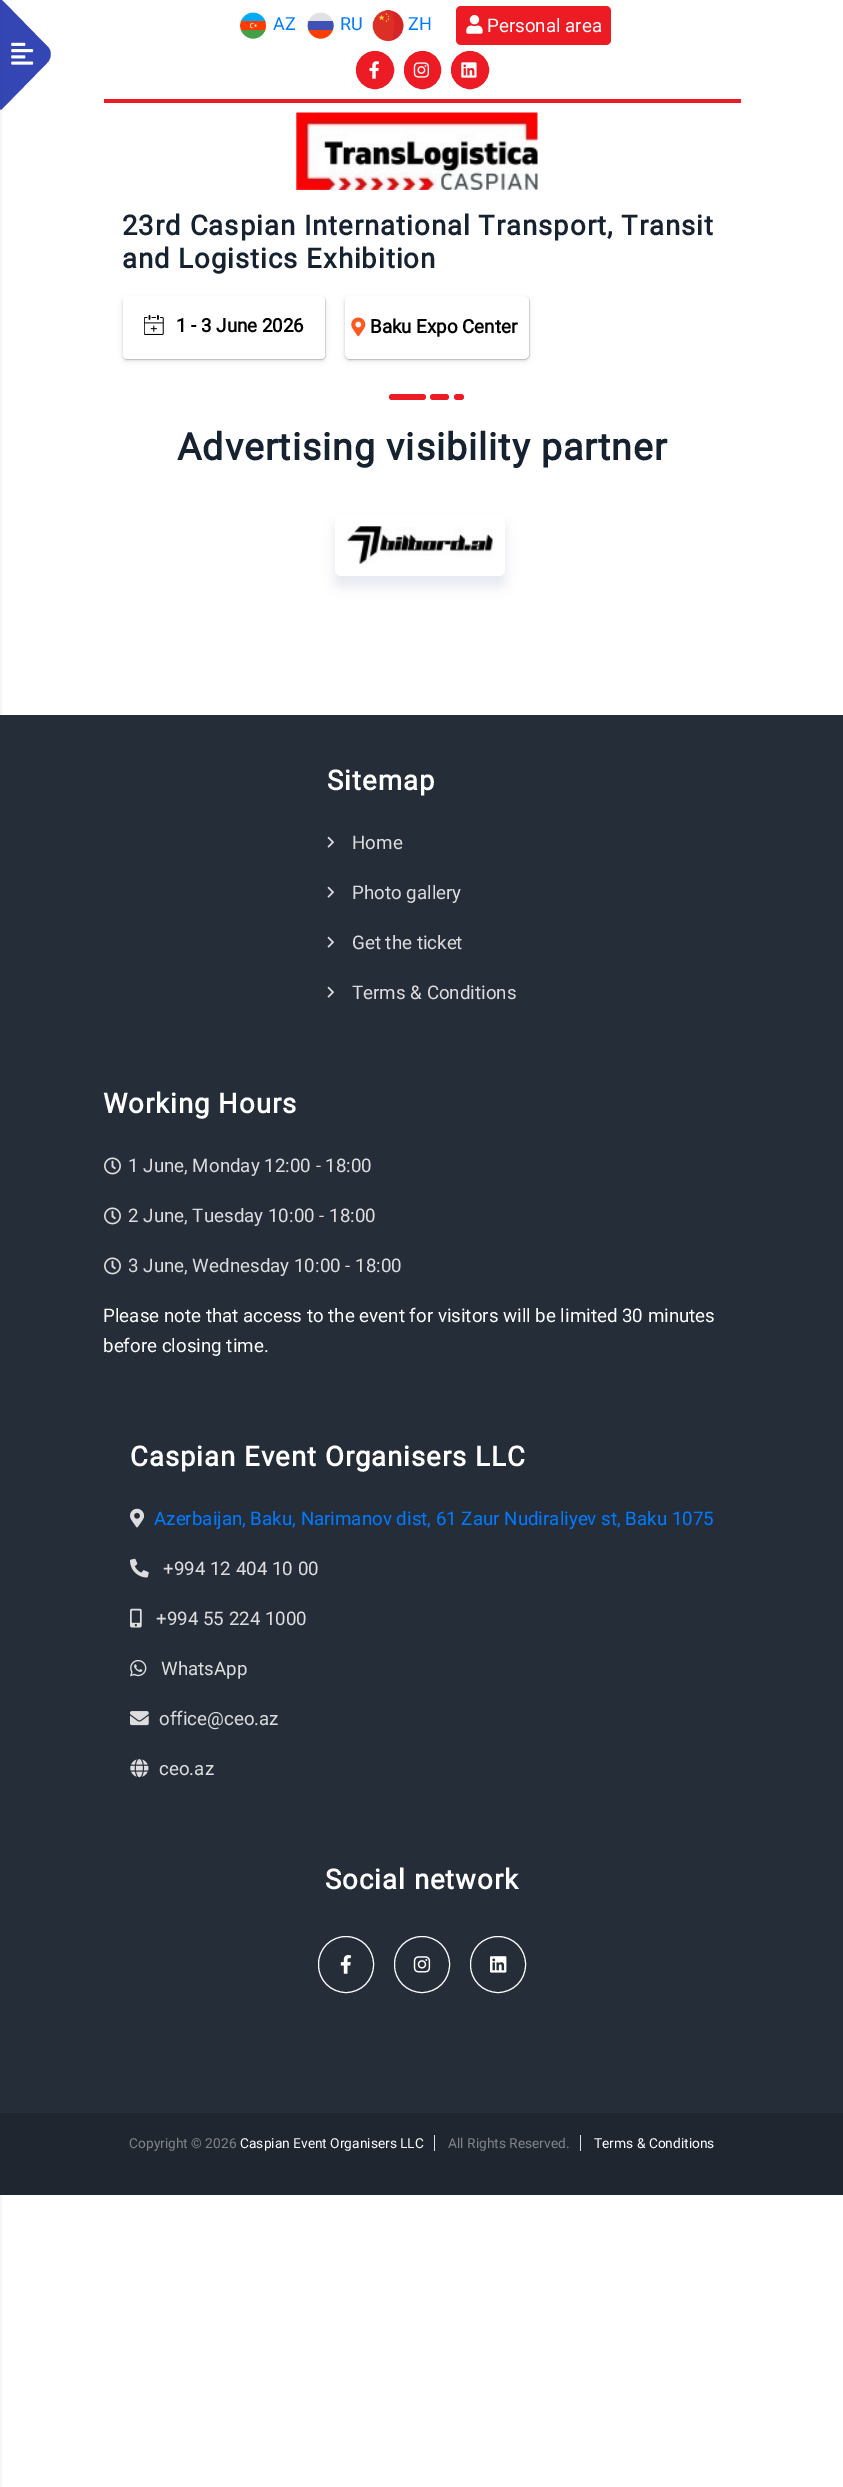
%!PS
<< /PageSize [843 2487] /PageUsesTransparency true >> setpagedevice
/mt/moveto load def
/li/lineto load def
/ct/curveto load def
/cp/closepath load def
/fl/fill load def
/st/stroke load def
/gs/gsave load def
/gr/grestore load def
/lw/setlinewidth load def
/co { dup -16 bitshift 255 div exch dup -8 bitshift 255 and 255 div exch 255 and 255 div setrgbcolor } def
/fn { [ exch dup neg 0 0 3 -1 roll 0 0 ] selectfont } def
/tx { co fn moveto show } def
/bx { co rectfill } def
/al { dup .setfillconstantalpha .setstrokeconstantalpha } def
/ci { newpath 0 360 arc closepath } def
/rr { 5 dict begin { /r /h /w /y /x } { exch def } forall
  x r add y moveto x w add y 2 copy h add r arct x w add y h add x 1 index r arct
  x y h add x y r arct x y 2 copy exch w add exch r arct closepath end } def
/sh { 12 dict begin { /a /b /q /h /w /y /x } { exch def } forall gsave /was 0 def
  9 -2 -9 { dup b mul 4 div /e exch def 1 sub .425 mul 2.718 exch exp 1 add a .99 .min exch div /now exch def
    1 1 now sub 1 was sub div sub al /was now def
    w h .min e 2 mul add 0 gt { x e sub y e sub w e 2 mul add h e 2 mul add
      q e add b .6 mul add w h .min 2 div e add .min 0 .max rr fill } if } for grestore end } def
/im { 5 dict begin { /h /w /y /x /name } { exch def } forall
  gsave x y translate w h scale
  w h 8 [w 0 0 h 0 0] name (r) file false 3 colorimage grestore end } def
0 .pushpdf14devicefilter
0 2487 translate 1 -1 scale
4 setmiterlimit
0 0 843 2487 16#FFFFFF bx
16#3445B4 co
1 -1 mt 47 46 li 52 50 52 58 47 63 ct 1 110 li -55 54 li cp fl
0 715 843 1398 16#252D39 bx
0 2113 843 82 16#1F2630 bx
16#333333 co
-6 4 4 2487 0 2 .5 sh
(media/1.raw) 11 42 23 23 im
(media/2.raw) 240 12 26 27 im
(media/3.raw) 307 12 27 27 im
(media/4.raw) 372 10 32 32 im
16#ED1C24 co
456 6 155 39 5 rr fl
(media/5.raw) 466 15 17 19 im
375 70 18.5 ci gs fl gr
st
(media/6.raw) 369 61 10 18 im
404.5 51.5 36 37 18 rr gs fl gr
st
(media/7.raw) 413 62 16 16 im
470 70 18.5 ci gs fl gr
st
(media/8.raw) 461 62 16 16 im
104 99 637 4 16#ED1C24 bx
(media/9.raw) 296 112 242 78 im
16#000000 co
123 298 202 62 4 1 .08 sh
123 298 202 62 4 1 .07 sh
16#32325D co
123 299 202 62 4 3 .1 sh
0.17 al
.6 lw
123.3 296.3 202.4 63.4 4.7 rr st
1 al
16#FFFFFF co
123 296 202 63 4 rr fl
(media/10.raw) 144 315 20 20 im
16#000000 co
345 298 184 62 5 1 .08 sh
345 298 184 62 5 1 .07 sh
16#32325D co
345 299 184 62 5 3 .1 sh
0.17 al
345.3 296.3 184.4 63.4 5.7 rr st
1 al
16#FFFFFF co
345 296 184 63 5 rr fl
(media/11.raw) 351 317 15 20 im
16#ED1C24 co
389 394 37 6 3 rr fl
430 394 19 6 3 rr fl
454 394 10 6 3 rr fl
16#08126D co
335 524 170 62 6 6 .1 sh
16#FFFFFF co
335 514 170 62 6 rr fl
(media/12.raw) 347 526 146 38 im
(media/13.raw) 327 836 7 12 im
(media/13.raw) 327 886 7 12 im
(media/13.raw) 327 936 7 12 im
(media/13.raw) 327 986 7 12 im
(media/14.raw) 104 1157 17 18 im
(media/14.raw) 104 1207 17 18 im
(media/14.raw) 104 1257 17 18 im
(media/15.raw) 130 1508 15 20 im
(media/16.raw) 130 1558 19 20 im
(media/17.raw) 130 1608 12 20 im
(media/18.raw) 130 1659 17 18 im
(media/19.raw) 130 1711 19 15 im
(media/20.raw) 130 1759 19 19 im
1 lw
318.5 1936.5 55 56 27.5 rr st
(media/21.raw) 340 1955 11 19 im
394.5 1936.5 55 56 27.5 rr st
(media/22.raw) 413 1956 18 17 im
470.5 1936.5 55 56 27.5 rr st
(media/23.raw) 490 1956 17 17 im
434 2135 1 16 16#DEE2E6 bx
580 2135 1 16 16#DEE2E6 bx
(AZ) 273 30 /Roboto-Regular 18 16#007BFF tx
(RU) 340 30 /Roboto-Regular 18 16#007BFF tx
(ZH) 408 30 /Roboto-Regular 18 16#007BFF tx
(Personal area) 487 32 /Roboto-Regular 18.75 16#FFFFFF tx
/Roboto-Bold 27.5 fn
16#172231 co
122 235 mt 1 0 (23rd Caspian International Transport, Transit) ashow
122 268 mt 1 0 (and Logistics Exhibition) ashow
(1 - 3 June 2026) 176 332 /Roboto-Bold 18.75 16#000000 tx
(Baku Expo Center) 370 333 /Roboto-Bold 18.75 16#000000 tx
/Roboto-Bold 37.5 fn
16#172231 co
177 460 mt 1 0 (Advertising visibility partner) ashow
/Roboto-Bold 27.5 fn
16#FFFFFF co
327 790 mt 1 0 (Sitemap) ashow
(Home) 352 849 /Roboto-Regular 18.75 16#DDDDDD tx
(Photo gallery) 352 899 /Roboto-Regular 18.75 16#DDDDDD tx
(Get the ticket) 352 949 /Roboto-Regular 18.75 16#DDDDDD tx
(Terms & Conditions) 352 999 /Roboto-Regular 18.75 16#DDDDDD tx
/Roboto-Bold 27.5 fn
16#FFFFFF co
103 1113 mt 1 0 (Working Hours) ashow
(1 June, Monday 12:00 - 18:00) 128 1172 /Roboto-Regular 18.75 16#DDDDDD tx
(2 June, Tuesday 10:00 - 18:00) 128 1222 /Roboto-Regular 18.75 16#DDDDDD tx
(3 June, Wednesday 10:00 - 18:00) 128 1272 /Roboto-Regular 18.75 16#DDDDDD tx
(Please note that access to the event for visitors will be limited 30 minutes) 103 1322 /Roboto-Regular 18.75 16#FFFFFF tx
(before closing time.) 103 1352 /Roboto-Regular 18.75 16#FFFFFF tx
/Roboto-Bold 27.5 fn
130 1466 mt 1 0 (Caspian Event Organisers LLC) ashow
(Azerbaijan, Baku, Narimanov dist, 61 Zaur Nudiraliyev st, Baku 1075) 154 1525 /Roboto-Regular 18.75 16#007BFF tx
(+994 12 404 10 00) 163 1575 /Roboto-Regular 18.75 16#DDDDDD tx
(+994 55 224 1000) 156 1625 /Roboto-Regular 18.75 16#DDDDDD tx
(WhatsApp) 161 1675 /Roboto-Regular 18.75 16#DDDDDD tx
(office@ceo.az) 159 1725 /Roboto-Regular 18.75 16#DDDDDD tx
(ceo.az) 159 1775 /Roboto-Regular 18.75 16#DDDDDD tx
/Roboto-Bold 27.5 fn
16#FFFFFF co
325 1889 mt 1 0 (Social network) ashow
(Copyright © 2026) 129 2148 /Roboto-Regular 13.75 16#818385 tx
(Caspian Event Organisers LLC) 240 2148 /Roboto-Regular 13.75 16#FFFFFF tx
(All Rights Reserved.) 448 2148 /Roboto-Regular 13.75 16#818385 tx
(Terms & Conditions) 594 2148 /Roboto-Regular 13.75 16#FFFFFF tx
.poppdf14devicefilter showpage
